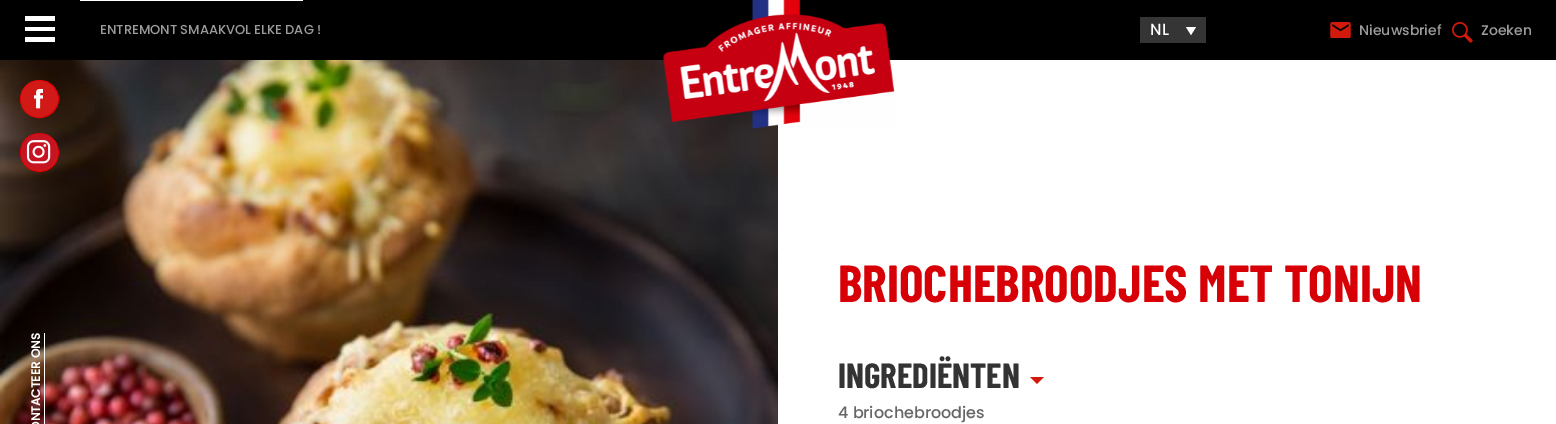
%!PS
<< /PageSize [1556 424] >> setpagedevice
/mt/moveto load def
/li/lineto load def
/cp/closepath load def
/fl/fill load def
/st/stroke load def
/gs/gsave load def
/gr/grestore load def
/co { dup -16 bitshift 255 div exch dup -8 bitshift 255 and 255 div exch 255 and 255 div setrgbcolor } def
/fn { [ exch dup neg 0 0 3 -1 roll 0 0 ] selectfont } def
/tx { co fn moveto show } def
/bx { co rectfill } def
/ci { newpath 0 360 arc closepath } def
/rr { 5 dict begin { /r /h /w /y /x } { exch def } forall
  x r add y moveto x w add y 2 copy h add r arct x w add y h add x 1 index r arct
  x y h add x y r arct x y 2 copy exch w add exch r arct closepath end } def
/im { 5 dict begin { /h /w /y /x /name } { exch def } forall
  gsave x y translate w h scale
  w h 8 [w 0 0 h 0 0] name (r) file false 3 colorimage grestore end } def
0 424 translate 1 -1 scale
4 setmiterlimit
0 0 1556 424 16#FFFFFF bx
0 0 1556 60 16#000000 bx
25 16 30 5 16#FFFFFF bx
25 27 30 4 16#FFFFFF bx
25 37 30 5 16#FFFFFF bx
(media/6.raw) 0 60 778 364 im
(media/1.raw) 663 0 232 129 im
80 0 223 1 16#FFFFFF bx
1140 17 66 26 16#353535 bx
16#FFFFFF co
1186 27 mt 1196 27 li 1191 35 li cp fl
(media/2.raw) 1330 22 21 16 im
(media/3.raw) 1452 22 21 21 im
16#D11A17 co
20.5 80.5 38 37 18.5 rr gs fl gr
16#D70005 co
st
(media/4.raw) 21 81 22 36 im
16#D11A17 co
39.5 152.5 19 ci gs fl gr
16#D70005 co
st
(media/5.raw) 21 134 36 36 im
44 333 1 91 16#FFFFFF bx
16#D11A0B co
1030 377 mt 1044 377 li 1037 384 li cp fl
(ENTREMONT SMAAKVOL ELKE DAG !) 100 34 /Poppins-Medium 13 16#9C9C9C tx
(NL) 1150 35 /Poppins-Medium 16 16#FFFFFF tx
(Nieuwsbrief) 1359 35 /Poppins-Medium 14 16#9C9C9C tx
(Zoeken) 1481 35 /Poppins-Medium 14 16#9C9C9C tx
/Poppins-Bold 12 fn
16#FFFFFF co
gs 40 440 translate -90 rotate 0 0 mt (CONTACTEER ONS) show gr
(BRIOCHEBROODJES MET TONIJN) 838 302 /BarlowCondensed-Bold 52 16#D70006 tx
(INGREDIËNTEN) 838 388 /BarlowCondensed-Bold 35 16#333333 tx
(4 briochebroodjes) 838 418 /Poppins-Medium 16 16#666666 tx
showpage
